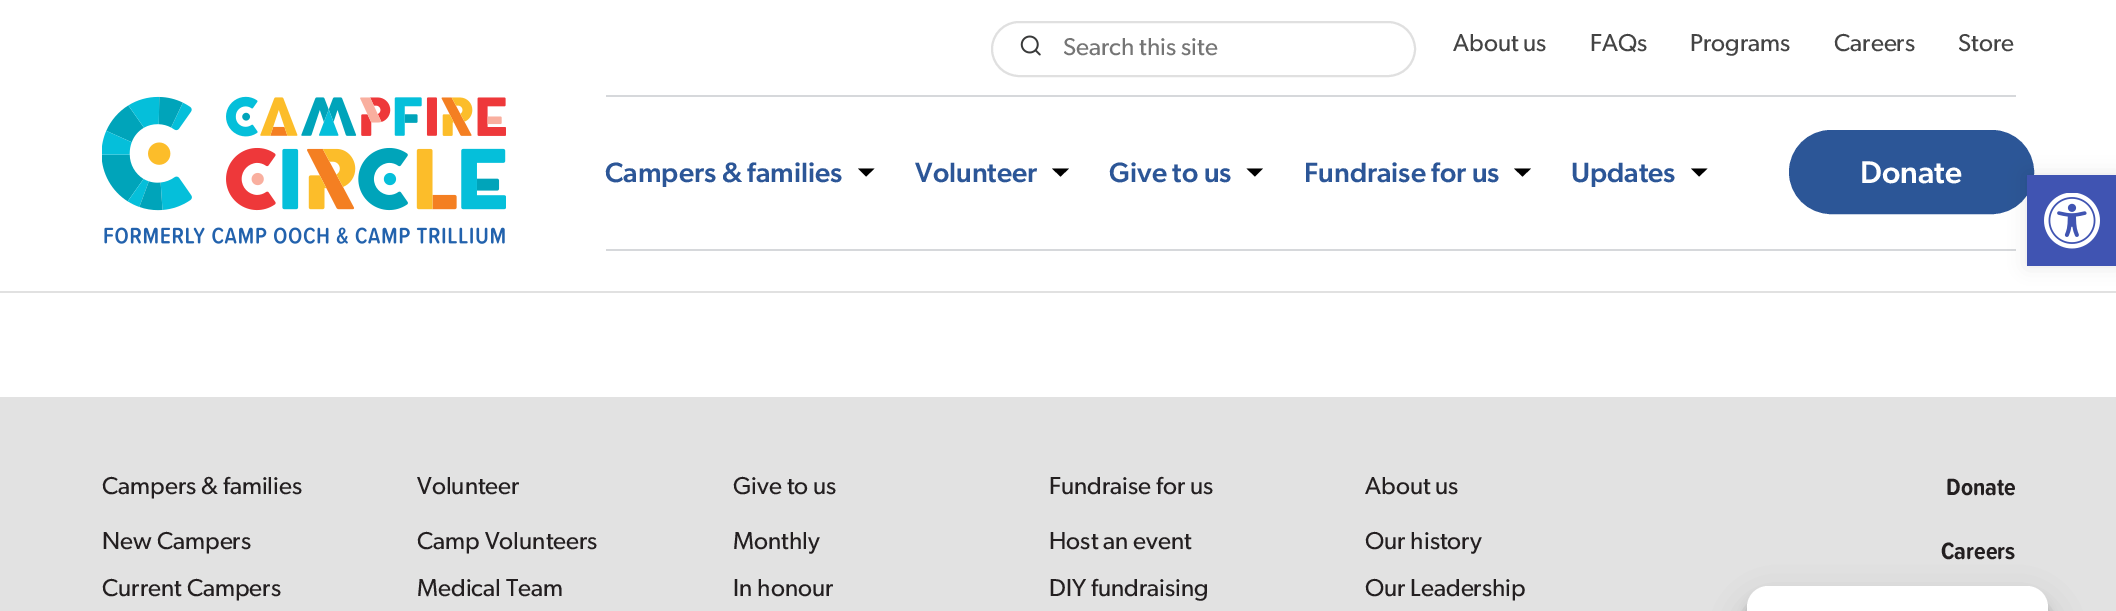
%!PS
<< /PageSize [2116 611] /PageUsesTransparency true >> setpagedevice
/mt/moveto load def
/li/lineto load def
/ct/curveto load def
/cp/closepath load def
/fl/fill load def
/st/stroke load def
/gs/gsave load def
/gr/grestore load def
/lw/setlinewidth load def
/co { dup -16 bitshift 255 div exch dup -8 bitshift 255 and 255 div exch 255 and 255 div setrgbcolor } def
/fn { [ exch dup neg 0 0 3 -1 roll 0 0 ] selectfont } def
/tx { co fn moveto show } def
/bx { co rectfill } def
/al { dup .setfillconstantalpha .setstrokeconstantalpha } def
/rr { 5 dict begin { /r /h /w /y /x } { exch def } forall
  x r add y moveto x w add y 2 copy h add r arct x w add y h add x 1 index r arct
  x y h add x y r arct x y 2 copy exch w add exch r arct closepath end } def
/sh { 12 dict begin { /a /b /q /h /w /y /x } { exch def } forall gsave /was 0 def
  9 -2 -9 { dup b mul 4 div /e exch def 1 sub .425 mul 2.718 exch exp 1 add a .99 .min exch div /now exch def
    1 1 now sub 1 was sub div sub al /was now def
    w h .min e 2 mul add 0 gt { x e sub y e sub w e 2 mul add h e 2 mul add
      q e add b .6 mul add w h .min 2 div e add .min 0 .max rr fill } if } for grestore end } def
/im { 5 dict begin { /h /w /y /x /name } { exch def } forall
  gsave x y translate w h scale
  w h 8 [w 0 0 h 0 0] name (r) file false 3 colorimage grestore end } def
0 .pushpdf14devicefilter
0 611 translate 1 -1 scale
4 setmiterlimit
0 0 2116 611 16#FFFFFF bx
0 291 2116 2 16#E1E1E1 bx
16#E0E0E0 co
2 lw
992 22 423 54 27 rr st
(media/1.raw) 1020 35 21 21 im
(media/2.raw) 102 96 404 148 im
606 95 1410 2 16#D6D8DB bx
606 249 1410 2 16#D6D8DB bx
16#000000 co
874.5 168.5 mt 866 176.5 li 858 168.5 li cp eofill
1069 168.5 mt 1060.5 176.5 li 1052 168.5 li cp eofill
1263 168.5 mt 1255 176.5 li 1246.5 168.5 li cp eofill
1531 168.5 mt 1522.5 176.5 li 1514 168.5 li cp eofill
1707.5 168.5 mt 1699 176.5 li 1691 168.5 li cp eofill
16#2C5697 co
1790 131 243 82 41 rr gs fl gr
st
0 397 2116 214 16#E2E2E2 bx
16#000000 co
2027 175 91 91 0 9 .1 sh
2027 175 89 91 16#4054B2 bx
(media/3.raw) 2044 193 56 56 im
16#000000 co
1747 597 301 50 21 5 .23 sh
1747 604 301 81 21 17.5 .19 sh
16#FFFFFF co
1768 586 mt 2027 586 li 2038.5 586 2048 595.5 2048 607 ct 2048 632 li 1747 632 li 1747 607 li 1747 595.5 1756.5 586 1768 586 ct cp fl
(Search this site) 1063 55 /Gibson-Regular 24.5 16#757575 tx
(About us) 1453 51 /Gibson-Regular 24.5 16#444444 tx
(FAQs) 1590 51 /Gibson-Regular 24.5 16#444444 tx
(Programs) 1690 51 /Gibson-Regular 24.5 16#444444 tx
(Careers) 1834 51 /Gibson-Regular 24.5 16#444444 tx
(Store) 1958 51 /Gibson-Regular 24.5 16#444444 tx
(Campers & families) 605 182 /Gibson-Medium 28 16#2C5697 tx
(Volunteer) 915 182 /Gibson-Medium 28 16#2C5697 tx
(Give to us) 1109 182 /Gibson-Medium 28 16#2C5697 tx
(Fundraise for us) 1304 182 /Gibson-Medium 28 16#2C5697 tx
(Updates) 1571 182 /Gibson-Medium 28 16#2C5697 tx
(Donate) 1860 183 /Gibson-Medium 31.5 16#FFFFFF tx
(Campers & families) 102 494 /Gibson-Regular 24.5 16#231F20 tx
(New Campers) 102 549 /Gibson-Regular 24.5 16#231F20 tx
(Current Campers) 102 596 /Gibson-Regular 24.5 16#231F20 tx
(Volunteer) 417 494 /Gibson-Regular 24.5 16#231F20 tx
(Camp Volunteers) 417 549 /Gibson-Regular 24.5 16#231F20 tx
(Medical Team) 417 596 /Gibson-Regular 24.5 16#231F20 tx
(Give to us) 733 494 /Gibson-Regular 24.5 16#231F20 tx
(Monthly) 733 549 /Gibson-Regular 24.5 16#231F20 tx
(In honour) 733 596 /Gibson-Regular 24.5 16#231F20 tx
(Fundraise for us) 1049 494 /Gibson-Regular 24.5 16#231F20 tx
(Host an event) 1049 549 /Gibson-Regular 24.5 16#231F20 tx
(DIY fundraising) 1049 596 /Gibson-Regular 24.5 16#231F20 tx
(About us) 1365 494 /Gibson-Regular 24.5 16#231F20 tx
(Our history) 1365 549 /Gibson-Regular 24.5 16#231F20 tx
(Our Leadership) 1365 596 /Gibson-Regular 24.5 16#231F20 tx
(Donate) 1946 495 /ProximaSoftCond-Bold 24.5 16#231F20 tx
(Careers) 1941 559 /ProximaSoftCond-Bold 24.5 16#231F20 tx
.poppdf14devicefilter showpage
